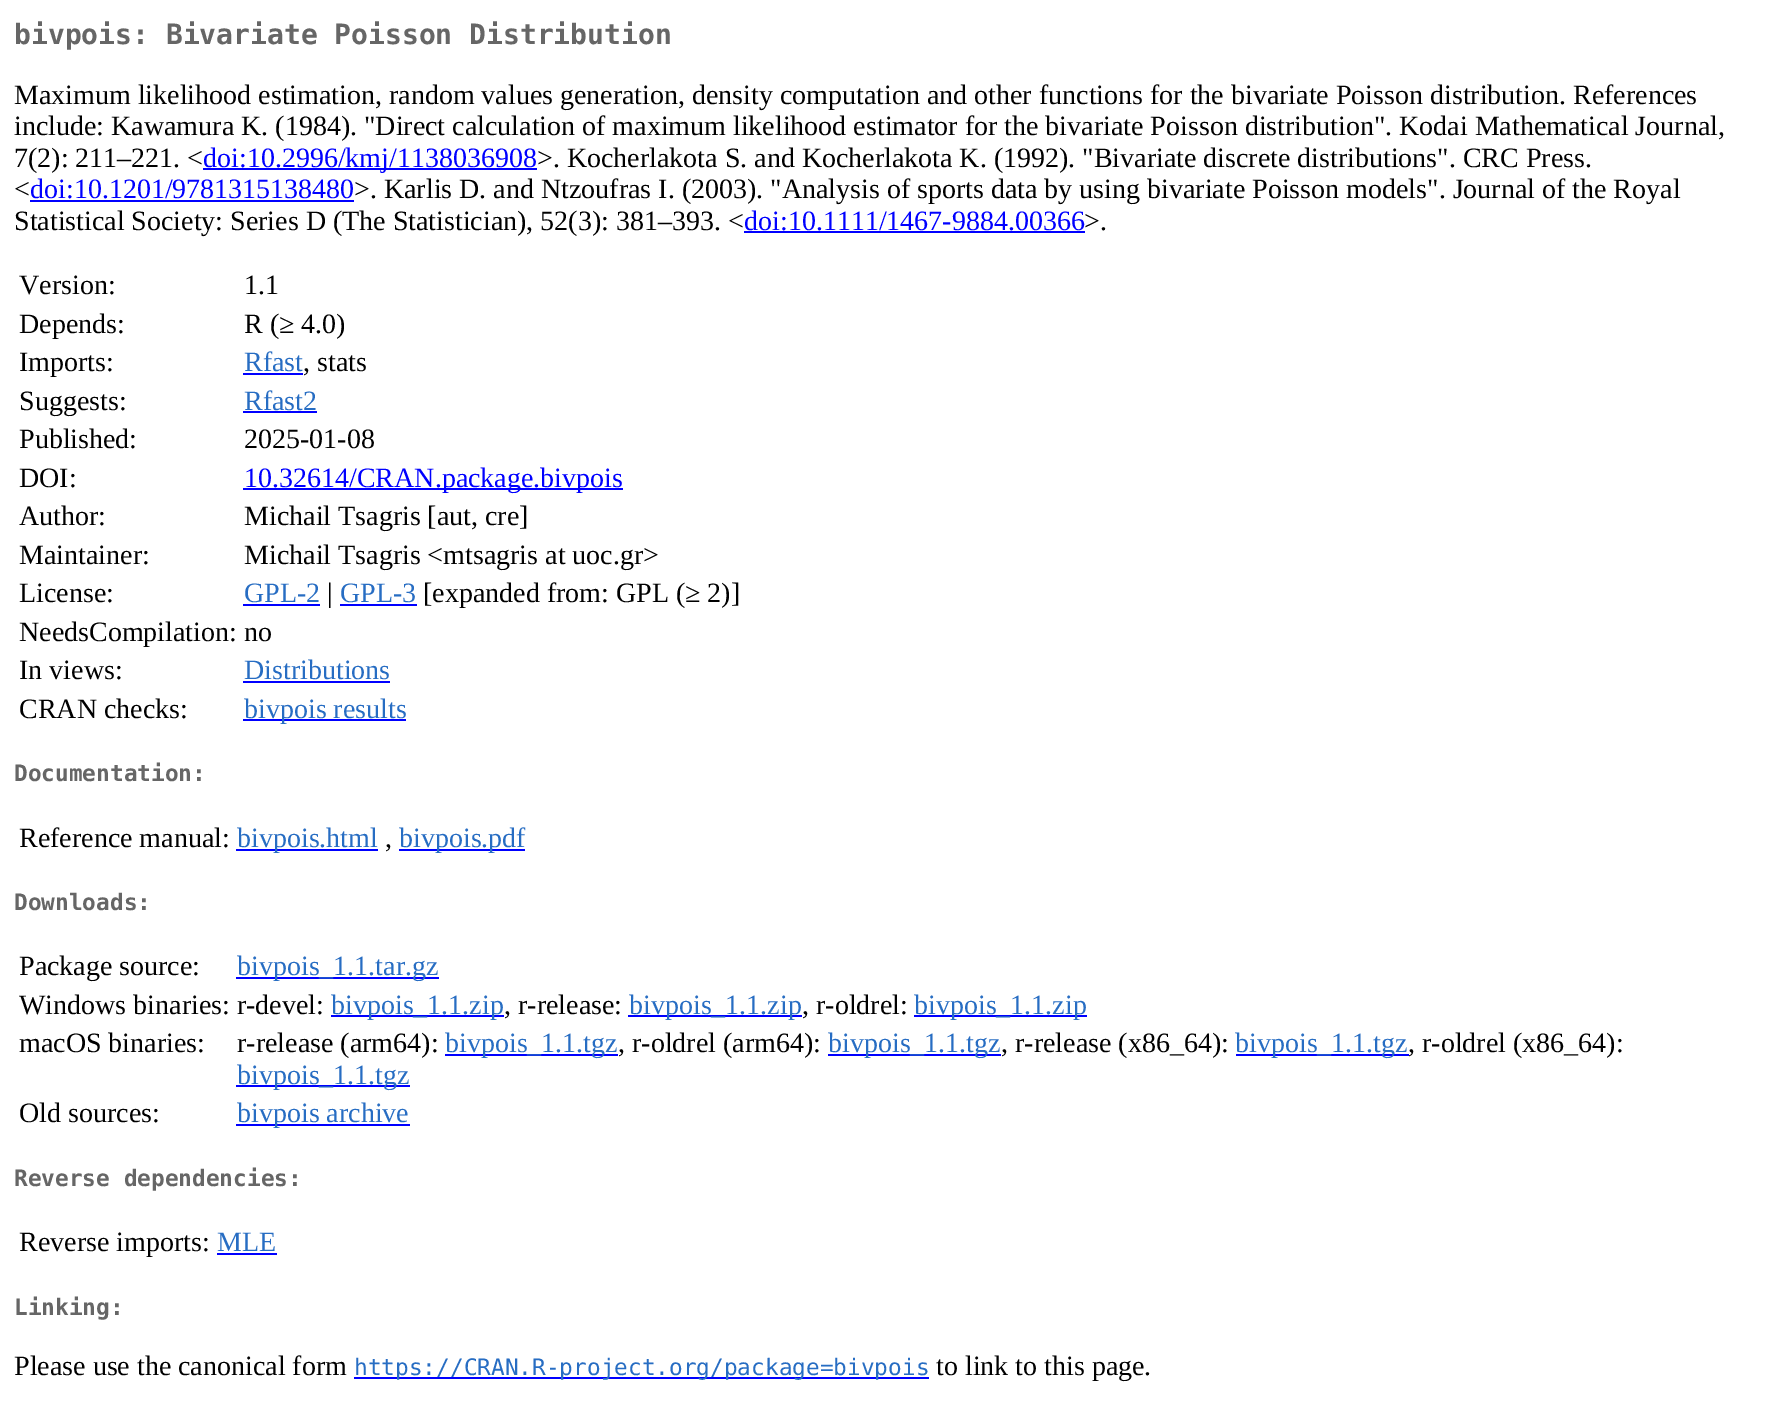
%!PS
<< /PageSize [1783 1410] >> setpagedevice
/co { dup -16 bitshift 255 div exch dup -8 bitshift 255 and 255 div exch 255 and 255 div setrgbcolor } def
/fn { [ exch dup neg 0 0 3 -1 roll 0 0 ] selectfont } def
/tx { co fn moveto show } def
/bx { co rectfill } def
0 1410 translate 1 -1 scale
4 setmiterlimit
0 0 1783 1410 16#FFFFFF bx
203 168 334 2 16#0000FF bx
30 200 324 2 16#0000FF bx
744 231 341 2 16#0000FF bx
243 373 60 2 16#0000FF bx
243 411 74 2 16#0000FF bx
243 488 380 2 16#0000FF bx
243 604 77 2 16#0000FF bx
340 604 77 2 16#0000FF bx
243 681 147 2 16#0000FF bx
243 719 163 2 16#0000FF bx
236 849 142 2 16#0000FF bx
399 849 126 2 16#0000FF bx
236 977 203 2 16#0000FF bx
331 1015 173 2 16#0000FF bx
628 1015 174 2 16#0000FF bx
914 1015 173 2 16#0000FF bx
445 1054 173 2 16#0000FF bx
828 1054 173 2 16#0000FF bx
1236 1054 173 2 16#0000FF bx
236 1085 174 2 16#0000FF bx
236 1124 174 2 16#0000FF bx
217 1253 60 2 16#0000FF bx
354 1377 575 2 16#0000FF bx
(bivpois: Bivariate Poisson Distribution) 14 44 /DejaVuSansMono-Bold 28 16#666666 tx
(Maximum likelihood estimation, random values generation, density computation and other functions for the bivariate Poisson distribution. References) 14 104 /LiberationSerif-Regular 28 16#000000 tx
(include: Kawamura K. \(1984\). "Direct calculation of maximum likelihood estimator for the bivariate Poisson distribution". Kodai Mathematical Journal,) 14 135 /LiberationSerif-Regular 28 16#000000 tx
(7\(2\): 211–221. <) 14 167 /LiberationSerif-Regular 28 16#000000 tx
(doi:10.2996/kmj/1138036908) 203 167 /LiberationSerif-Regular 28 16#0000FF tx
(>. Kocherlakota S. and Kocherlakota K. \(1992\). "Bivariate discrete distributions". CRC Press.) 537 167 /LiberationSerif-Regular 28 16#000000 tx
(<) 14 198 /LiberationSerif-Regular 28 16#000000 tx
(doi:10.1201/9781315138480) 30 198 /LiberationSerif-Regular 28 16#0000FF tx
(>. Karlis D. and Ntzoufras I. \(2003\). "Analysis of sports data by using bivariate Poisson models". Journal of the Royal) 354 198 /LiberationSerif-Regular 28 16#000000 tx
(Statistical Society: Series D \(The Statistician\), 52\(3\): 381–393. <) 14 230 /LiberationSerif-Regular 28 16#000000 tx
(doi:10.1111/1467-9884.00366) 744 230 /LiberationSerif-Regular 28 16#0000FF tx
(>.) 1084 230 /LiberationSerif-Regular 28 16#000000 tx
(Version:) 19 294 /LiberationSerif-Regular 28 16#000000 tx
(1.1) 244 294 /LiberationSerif-Regular 28 16#000000 tx
(Depends:) 19 333 /LiberationSerif-Regular 28 16#000000 tx
(R \(≥ 4.0\)) 244 333 /LiberationSerif-Regular 28 16#000000 tx
(Imports:) 19 371 /LiberationSerif-Regular 28 16#000000 tx
(Rfast) 244 371 /LiberationSerif-Regular 28 16#276DC3 tx
(, stats) 303 371 /LiberationSerif-Regular 28 16#000000 tx
(Suggests:) 19 410 /LiberationSerif-Regular 28 16#000000 tx
(Rfast2) 244 410 /LiberationSerif-Regular 28 16#276DC3 tx
(Published:) 19 448 /LiberationSerif-Regular 28 16#000000 tx
(2025-01-08) 244 448 /LiberationSerif-Regular 28 16#000000 tx
(DOI:) 19 487 /LiberationSerif-Regular 28 16#000000 tx
(10.32614/CRAN.package.bivpois) 244 487 /LiberationSerif-Regular 28 16#0000FF tx
(Author:) 19 525 /LiberationSerif-Regular 28 16#000000 tx
(Michail Tsagris [aut, cre]) 244 525 /LiberationSerif-Regular 28 16#000000 tx
(Maintainer:) 19 564 /LiberationSerif-Regular 28 16#000000 tx
(Michail Tsagris <mtsagris at uoc.gr>) 244 564 /LiberationSerif-Regular 28 16#000000 tx
(License:) 19 602 /LiberationSerif-Regular 28 16#000000 tx
(GPL-2) 244 602 /LiberationSerif-Regular 28 16#276DC3 tx
(|) 327 602 /LiberationSerif-Regular 28 16#000000 tx
(GPL-3) 340 602 /LiberationSerif-Regular 28 16#276DC3 tx
([expanded from: GPL \(≥ 2\)]) 423 602 /LiberationSerif-Regular 28 16#000000 tx
(NeedsCompilation: no) 19 641 /LiberationSerif-Regular 28 16#000000 tx
(In views:) 19 679 /LiberationSerif-Regular 28 16#000000 tx
(Distributions) 244 679 /LiberationSerif-Regular 28 16#276DC3 tx
(CRAN checks:) 19 718 /LiberationSerif-Regular 28 16#000000 tx
(bivpois results) 244 718 /LiberationSerif-Regular 28 16#276DC3 tx
(Documentation:) 14 781 /DejaVuSansMono-Bold 22.75 16#666666 tx
(Reference manual:) 19 847 /LiberationSerif-Regular 28 16#000000 tx
(bivpois.html) 237 847 /LiberationSerif-Regular 28 16#276DC3 tx
(,) 385 847 /LiberationSerif-Regular 28 16#000000 tx
(bivpois.pdf) 399 847 /LiberationSerif-Regular 28 16#276DC3 tx
(Downloads:) 14 910 /DejaVuSansMono-Bold 22.75 16#666666 tx
(Package source:) 19 975 /LiberationSerif-Regular 28 16#000000 tx
(bivpois_1.1.tar.gz) 237 975 /LiberationSerif-Regular 28 16#276DC3 tx
(Windows binaries: r-devel:) 19 1014 /LiberationSerif-Regular 28 16#000000 tx
(bivpois_1.1.zip) 331 1014 /LiberationSerif-Regular 28 16#276DC3 tx
(, r-release:) 504 1014 /LiberationSerif-Regular 28 16#000000 tx
(bivpois_1.1.zip) 629 1014 /LiberationSerif-Regular 28 16#276DC3 tx
(, r-oldrel:) 802 1014 /LiberationSerif-Regular 28 16#000000 tx
(bivpois_1.1.zip) 914 1014 /LiberationSerif-Regular 28 16#276DC3 tx
(macOS binaries:) 19 1052 /LiberationSerif-Regular 28 16#000000 tx
(r-release \(arm64\):) 237 1052 /LiberationSerif-Regular 28 16#000000 tx
(bivpois_1.1.tgz) 445 1052 /LiberationSerif-Regular 28 16#276DC3 tx
(, r-oldrel \(arm64\):) 618 1052 /LiberationSerif-Regular 28 16#000000 tx
(bivpois_1.1.tgz) 828 1052 /LiberationSerif-Regular 28 16#276DC3 tx
(, r-release \(x86_64\):) 1001 1052 /LiberationSerif-Regular 28 16#000000 tx
(bivpois_1.1.tgz) 1235 1052 /LiberationSerif-Regular 28 16#276DC3 tx
(, r-oldrel \(x86_64\):) 1408 1052 /LiberationSerif-Regular 28 16#000000 tx
(bivpois_1.1.tgz) 237 1084 /LiberationSerif-Regular 28 16#276DC3 tx
(Old sources:) 19 1122 /LiberationSerif-Regular 28 16#000000 tx
(bivpois archive) 237 1122 /LiberationSerif-Regular 28 16#276DC3 tx
(Reverse dependencies:) 14 1186 /DejaVuSansMono-Bold 22.75 16#666666 tx
(Reverse imports:) 19 1251 /LiberationSerif-Regular 28 16#000000 tx
(MLE) 217 1251 /LiberationSerif-Regular 28 16#276DC3 tx
(Linking:) 14 1315 /DejaVuSansMono-Bold 22.75 16#666666 tx
(Please use the canonical form) 14 1375 /LiberationSerif-Regular 28 16#000000 tx
(https://CRAN.R-project.org/package=bivpois) 354 1375 /DejaVuSansMono-Regular 22.75 16#276DC3 tx
(to link to this page.) 936 1375 /LiberationSerif-Regular 28 16#000000 tx
showpage
